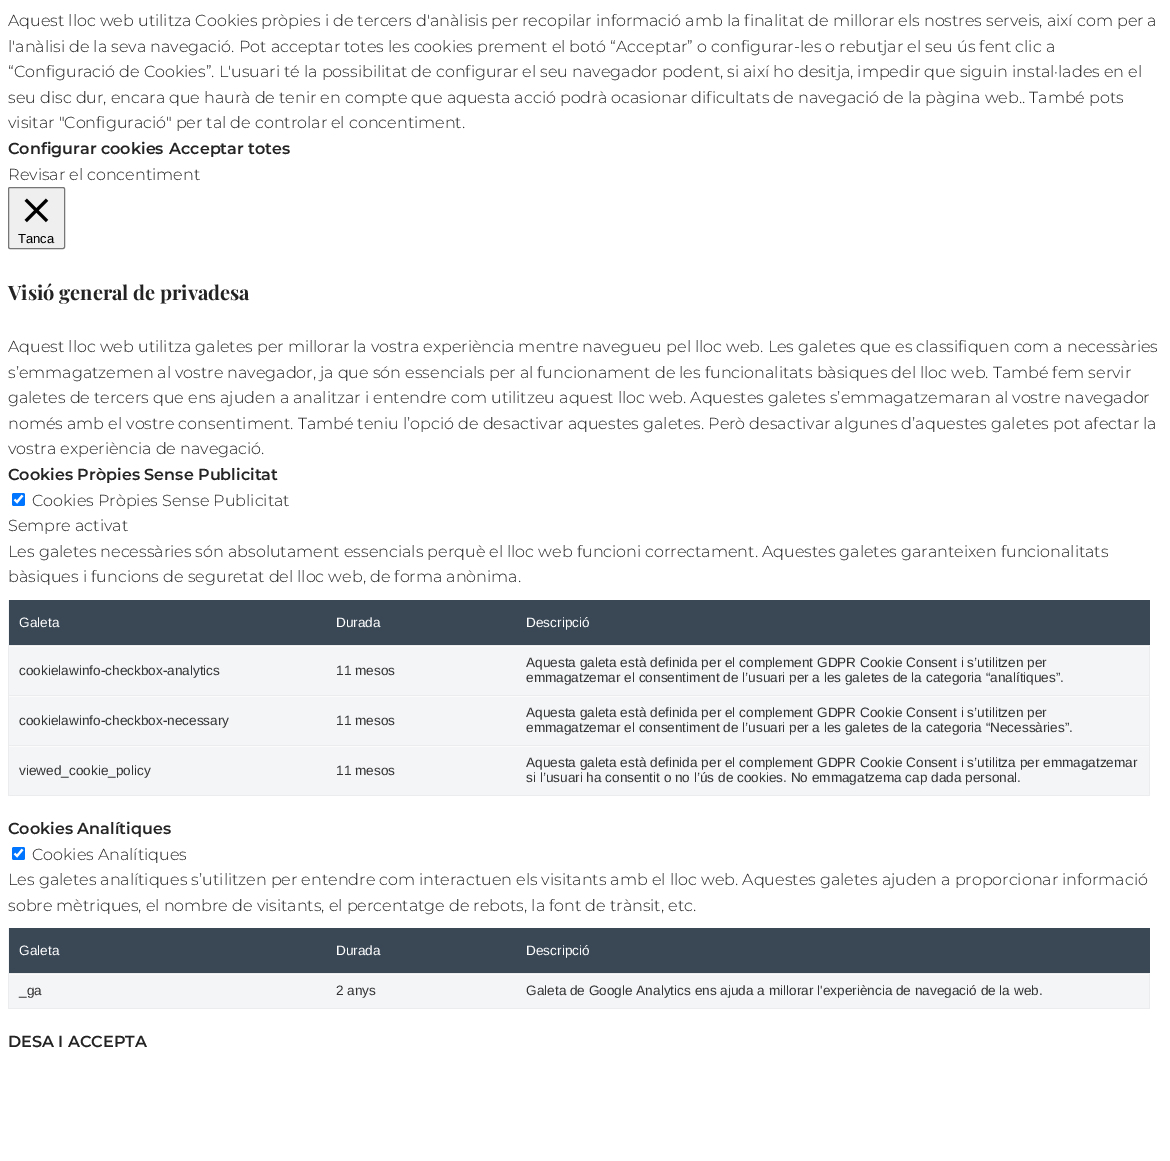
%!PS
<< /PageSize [1170 1161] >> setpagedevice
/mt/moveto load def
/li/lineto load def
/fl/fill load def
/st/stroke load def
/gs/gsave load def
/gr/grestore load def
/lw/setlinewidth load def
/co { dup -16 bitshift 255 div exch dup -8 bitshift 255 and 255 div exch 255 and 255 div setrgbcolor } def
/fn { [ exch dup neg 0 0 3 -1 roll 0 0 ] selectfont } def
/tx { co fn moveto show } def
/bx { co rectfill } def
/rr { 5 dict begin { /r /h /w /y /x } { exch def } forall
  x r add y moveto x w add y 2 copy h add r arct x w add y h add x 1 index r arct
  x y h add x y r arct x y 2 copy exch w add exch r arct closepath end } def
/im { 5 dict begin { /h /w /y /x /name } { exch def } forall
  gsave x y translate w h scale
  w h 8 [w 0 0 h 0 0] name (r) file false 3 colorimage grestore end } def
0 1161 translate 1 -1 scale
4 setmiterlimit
0 0 1170 1161 16#FFFFFF bx
16#EFEFEF co
8.5 187.5 56 61 1.5 rr gs fl gr
16#767676 co
st
(media/1.raw) 24 198 25 25 im
16#0075FF co
12 493 13 13 2 rr fl
16#FFFFFF co
2.1 lw
14.5 499.5 mt 17 502 li 22.5 495.5 li st
8 600 1141 195 16#F3F5F7 bx
9 600 1141 45 16#3A4856 bx
1149 645 1 151 16#EAECEE bx
8 795 1142 1 16#EAECEE bx
8 645 1 151 16#EAECEE bx
(media/2.raw) 9 645 317 2 im
(media/3.raw) 326 645 190 2 im
(media/4.raw) 516 645 633 2 im
(media/2.raw) 9 695 317 2 im
(media/3.raw) 326 695 190 2 im
(media/4.raw) 516 695 633 2 im
(media/2.raw) 9 745 317 2 im
(media/3.raw) 326 745 190 2 im
(media/4.raw) 516 745 633 2 im
16#0075FF co
12 847 13 13 2 rr fl
16#FFFFFF co
14.5 853.5 mt 17 856 li 22.5 849.5 li st
8 928 1141 80 16#F3F5F7 bx
9 928 1141 45 16#3A4856 bx
1149 973 1 36 16#EAECEE bx
8 1008 1142 1 16#EAECEE bx
8 973 1 36 16#EAECEE bx
(media/2.raw) 9 973 317 2 im
(media/3.raw) 326 973 190 2 im
(media/4.raw) 516 973 633 2 im
(Aquest lloc web utilitza Cookies pròpies i de tercers d'anàlisis per recopilar informació amb la finalitat de millorar els nostres serveis, així com per a) 8 26 /Montserrat-Light 16 16#232323 tx
(l'anàlisi de la seva navegació. Pot acceptar totes les cookies prement el botó “Acceptar” o configurar-les o rebutjar el seu ús fent clic a) 8 52 /Montserrat-Light 16 16#232323 tx
(“Configuració de Cookies”. L'usuari té la possibilitat de configurar el seu navegador podent, si així ho desitja, impedir que siguin instal·lades en el) 8 77 /Montserrat-Light 16 16#232323 tx
(seu disc dur, encara que haurà de tenir en compte que aquesta acció podrà ocasionar dificultats de navegació de la pàgina web.. També pots) 8 103 /Montserrat-Light 16 16#232323 tx
(visitar "Configuració" per tal de controlar el concentiment.) 8 128 /Montserrat-Light 16 16#232323 tx
(Configurar cookies) 8 154 /Montserrat-SemiBold 16 16#232323 tx
(Acceptar totes) 169 154 /Montserrat-SemiBold 16 16#232323 tx
(Revisar el concentiment) 8 180 /Montserrat-Light 16 16#232323 tx
(Tanca) 18 243 /LiberationSans-Regular 13 16#000000 tx
(Visió general de privadesa) 8 300 /PlayfairDisplay-Bold 20 16#232323 tx
(Aquest lloc web utilitza galetes per millorar la vostra experiència mentre navegueu pel lloc web. Les galetes que es classifiquen com a necessàries) 8 352 /Montserrat-Light 16 16#232323 tx
(s’emmagatzemen al vostre navegador, ja que són essencials per al funcionament de les funcionalitats bàsiques del lloc web. També fem servir) 8 378 /Montserrat-Light 16 16#232323 tx
(galetes de tercers que ens ajuden a analitzar i entendre com utilitzeu aquest lloc web. Aquestes galetes s’emmagatzemaran al vostre navegador) 8 403 /Montserrat-Light 16 16#232323 tx
(només amb el vostre consentiment. També teniu l’opció de desactivar aquestes galetes. Però desactivar algunes d’aquestes galetes pot afectar la) 8 429 /Montserrat-Light 16 16#232323 tx
(vostra experiència de navegació.) 8 454 /Montserrat-Light 16 16#232323 tx
(Cookies Pròpies Sense Publicitat) 8 480 /Montserrat-SemiBold 16 16#232323 tx
(Cookies Pròpies Sense Publicitat) 32 506 /Montserrat-Light 16 16#232323 tx
(Sempre activat) 8 531 /Montserrat-Light 16 16#232323 tx
(Les galetes necessàries són absolutament essencials perquè el lloc web funcioni correctament. Aquestes galetes garanteixen funcionalitats) 8 557 /Montserrat-Light 16 16#232323 tx
(bàsiques i funcions de seguretat del lloc web, de forma anònima.) 8 582 /Montserrat-Light 16 16#232323 tx
(Galeta) 19 627 /LiberationSans-Regular 13.6 16#FFFFFF tx
(Durada) 336 627 /LiberationSans-Regular 13.6 16#FFFFFF tx
(Descripció) 526 627 /LiberationSans-Regular 13.6 16#FFFFFF tx
(cookielawinfo-checkbox-analytics) 19 675 /LiberationSans-Regular 13.6 16#333333 tx
(11 mesos) 336 675 /LiberationSans-Regular 13.6 16#333333 tx
(Aquesta galeta està definida per el complement GDPR Cookie Consent i s’utilitzen per) 526 667 /LiberationSans-Regular 13.6 16#333333 tx
(emmagatzemar el consentiment de l’usuari per a les galetes de la categoria “analítiques”.) 526 682 /LiberationSans-Regular 13.6 16#333333 tx
(cookielawinfo-checkbox-necessary) 19 725 /LiberationSans-Regular 13.6 16#333333 tx
(11 mesos) 336 725 /LiberationSans-Regular 13.6 16#333333 tx
(Aquesta galeta està definida per el complement GDPR Cookie Consent i s’utilitzen per) 526 717 /LiberationSans-Regular 13.6 16#333333 tx
(emmagatzemar el consentiment de l’usuari per a les galetes de la categoria “Necessàries”.) 526 732 /LiberationSans-Regular 13.6 16#333333 tx
(viewed_cookie_policy) 19 775 /LiberationSans-Regular 13.6 16#333333 tx
(11 mesos) 336 775 /LiberationSans-Regular 13.6 16#333333 tx
(Aquesta galeta està definida per el complement GDPR Cookie Consent i s’utilitza per emmagatzemar) 526 767 /LiberationSans-Regular 13.6 16#333333 tx
(si l’usuari ha consentit o no l’ús de cookies. No emmagatzema cap dada personal.) 526 782 /LiberationSans-Regular 13.6 16#333333 tx
(Cookies Analítiques) 8 834 /Montserrat-SemiBold 16 16#232323 tx
(Cookies Analítiques) 32 860 /Montserrat-Light 16 16#232323 tx
(Les galetes analítiques s’utilitzen per entendre com interactuen els visitants amb el lloc web. Aquestes galetes ajuden a proporcionar informació) 8 885 /Montserrat-Light 16 16#232323 tx
(sobre mètriques, el nombre de visitants, el percentatge de rebots, la font de trànsit, etc.) 8 911 /Montserrat-Light 16 16#232323 tx
(Galeta) 19 955 /LiberationSans-Regular 13.6 16#FFFFFF tx
(Durada) 336 955 /LiberationSans-Regular 13.6 16#FFFFFF tx
(Descripció) 526 955 /LiberationSans-Regular 13.6 16#FFFFFF tx
(_ga) 19 995 /LiberationSans-Regular 13.6 16#333333 tx
(2 anys) 336 995 /LiberationSans-Regular 13.6 16#333333 tx
(Galeta de Google Analytics ens ajuda a millorar l'experiència de navegació de la web.) 526 995 /LiberationSans-Regular 13.6 16#333333 tx
(DESA I ACCEPTA) 8 1047 /Montserrat-SemiBold 16 16#232323 tx
showpage
